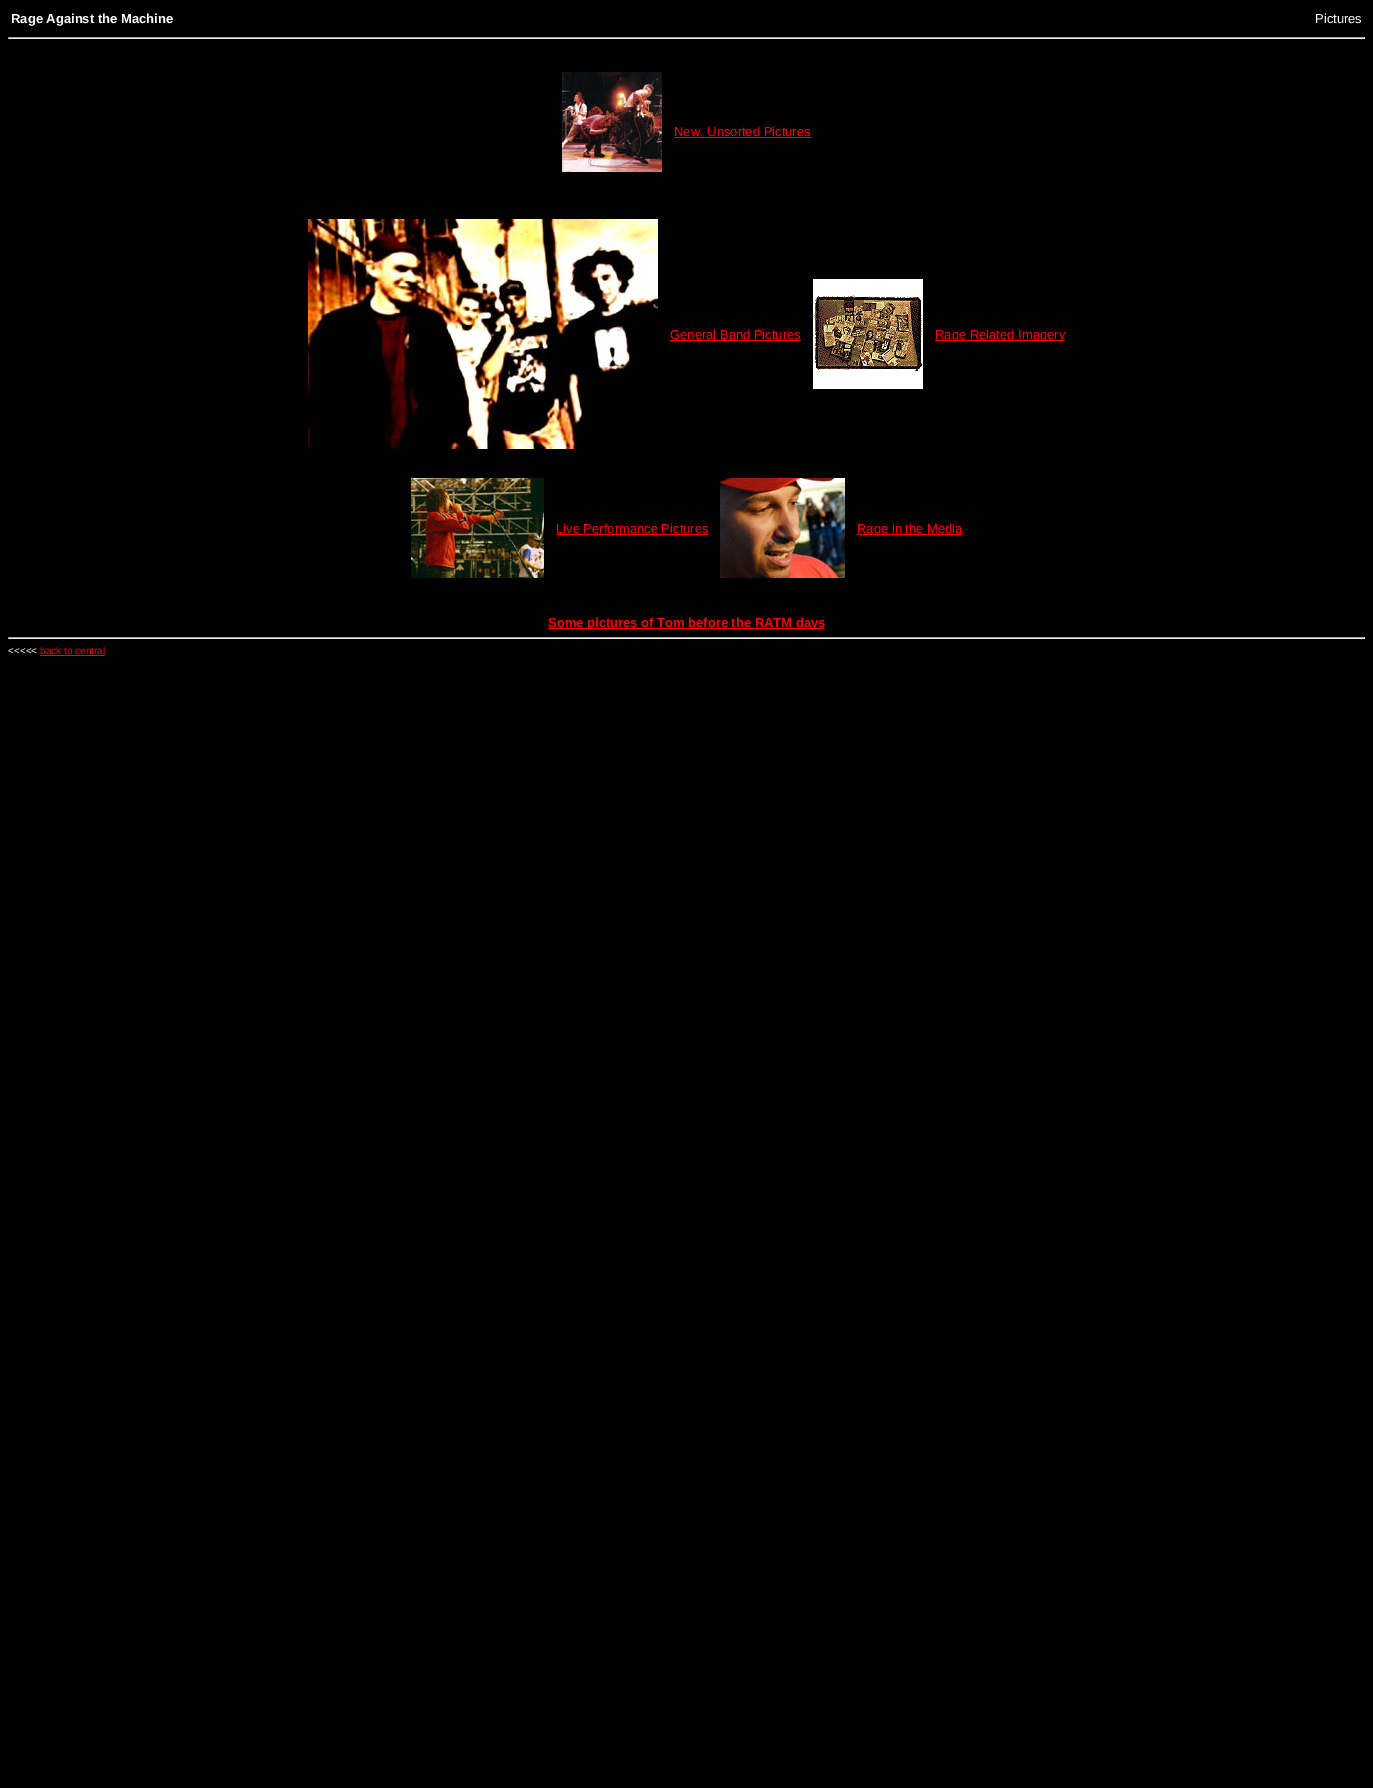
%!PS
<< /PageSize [1373 1788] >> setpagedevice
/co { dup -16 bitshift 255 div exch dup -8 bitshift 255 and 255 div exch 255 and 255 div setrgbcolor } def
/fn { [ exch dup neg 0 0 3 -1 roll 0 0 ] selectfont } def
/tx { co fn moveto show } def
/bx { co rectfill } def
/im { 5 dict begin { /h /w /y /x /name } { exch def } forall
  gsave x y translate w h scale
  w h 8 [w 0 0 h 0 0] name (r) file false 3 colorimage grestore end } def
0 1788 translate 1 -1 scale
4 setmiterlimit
0 0 1373 1788 16#000000 bx
8 37 1357 1 16#9F9F9F bx
1364 37 1 2 16#EEEEEE bx
8 38 1357 1 16#EEEEEE bx
8 37 1 2 16#9F9F9F bx
(media/1.raw) 562 72 100 100 im
674 137 137 1 16#FF0000 bx
(media/2.raw) 308 219 350 230 im
670 340 131 1 16#FF0000 bx
(media/3.raw) 813 279 110 110 im
935 340 130 1 16#FF0000 bx
(media/4.raw) 411 478 133 100 im
556 534 152 1 16#FF0000 bx
(media/5.raw) 720 478 125 100 im
857 534 105 1 16#FF0000 bx
548 628 277 1 16#FF0000 bx
8 637 1357 1 16#9F9F9F bx
1364 637 1 2 16#EEEEEE bx
8 638 1357 1 16#EEEEEE bx
8 637 1 2 16#9F9F9F bx
40 655 65 1 16#FF0000 bx
(Rage Against the Machine) 11 23 /LiberationSans-Bold 13 16#FFFFFF tx
(Pictures) 1315 23 /LiberationSans-Regular 13 16#FFFFFF tx
(New, Unsorted Pictures) 674 136 /LiberationSans-Regular 13 16#FF0000 tx
(General Band Pictures) 670 339 /LiberationSans-Regular 13 16#FF0000 tx
(Rage Related Imagery) 935 339 /LiberationSans-Regular 13 16#FF0000 tx
(Live Performance Pictures) 556 533 /LiberationSans-Regular 13 16#FF0000 tx
(Rage in the Media) 857 533 /LiberationSans-Regular 13 16#FF0000 tx
(Some pictures of Tom before the RATM days) 548 627 /LiberationSans-Bold 13 16#FF0000 tx
(<<<<<) 8 654 /LiberationSans-Regular 10 16#FFFFFF tx
(back to central) 40 654 /LiberationSans-Regular 10 16#FF0000 tx
showpage
